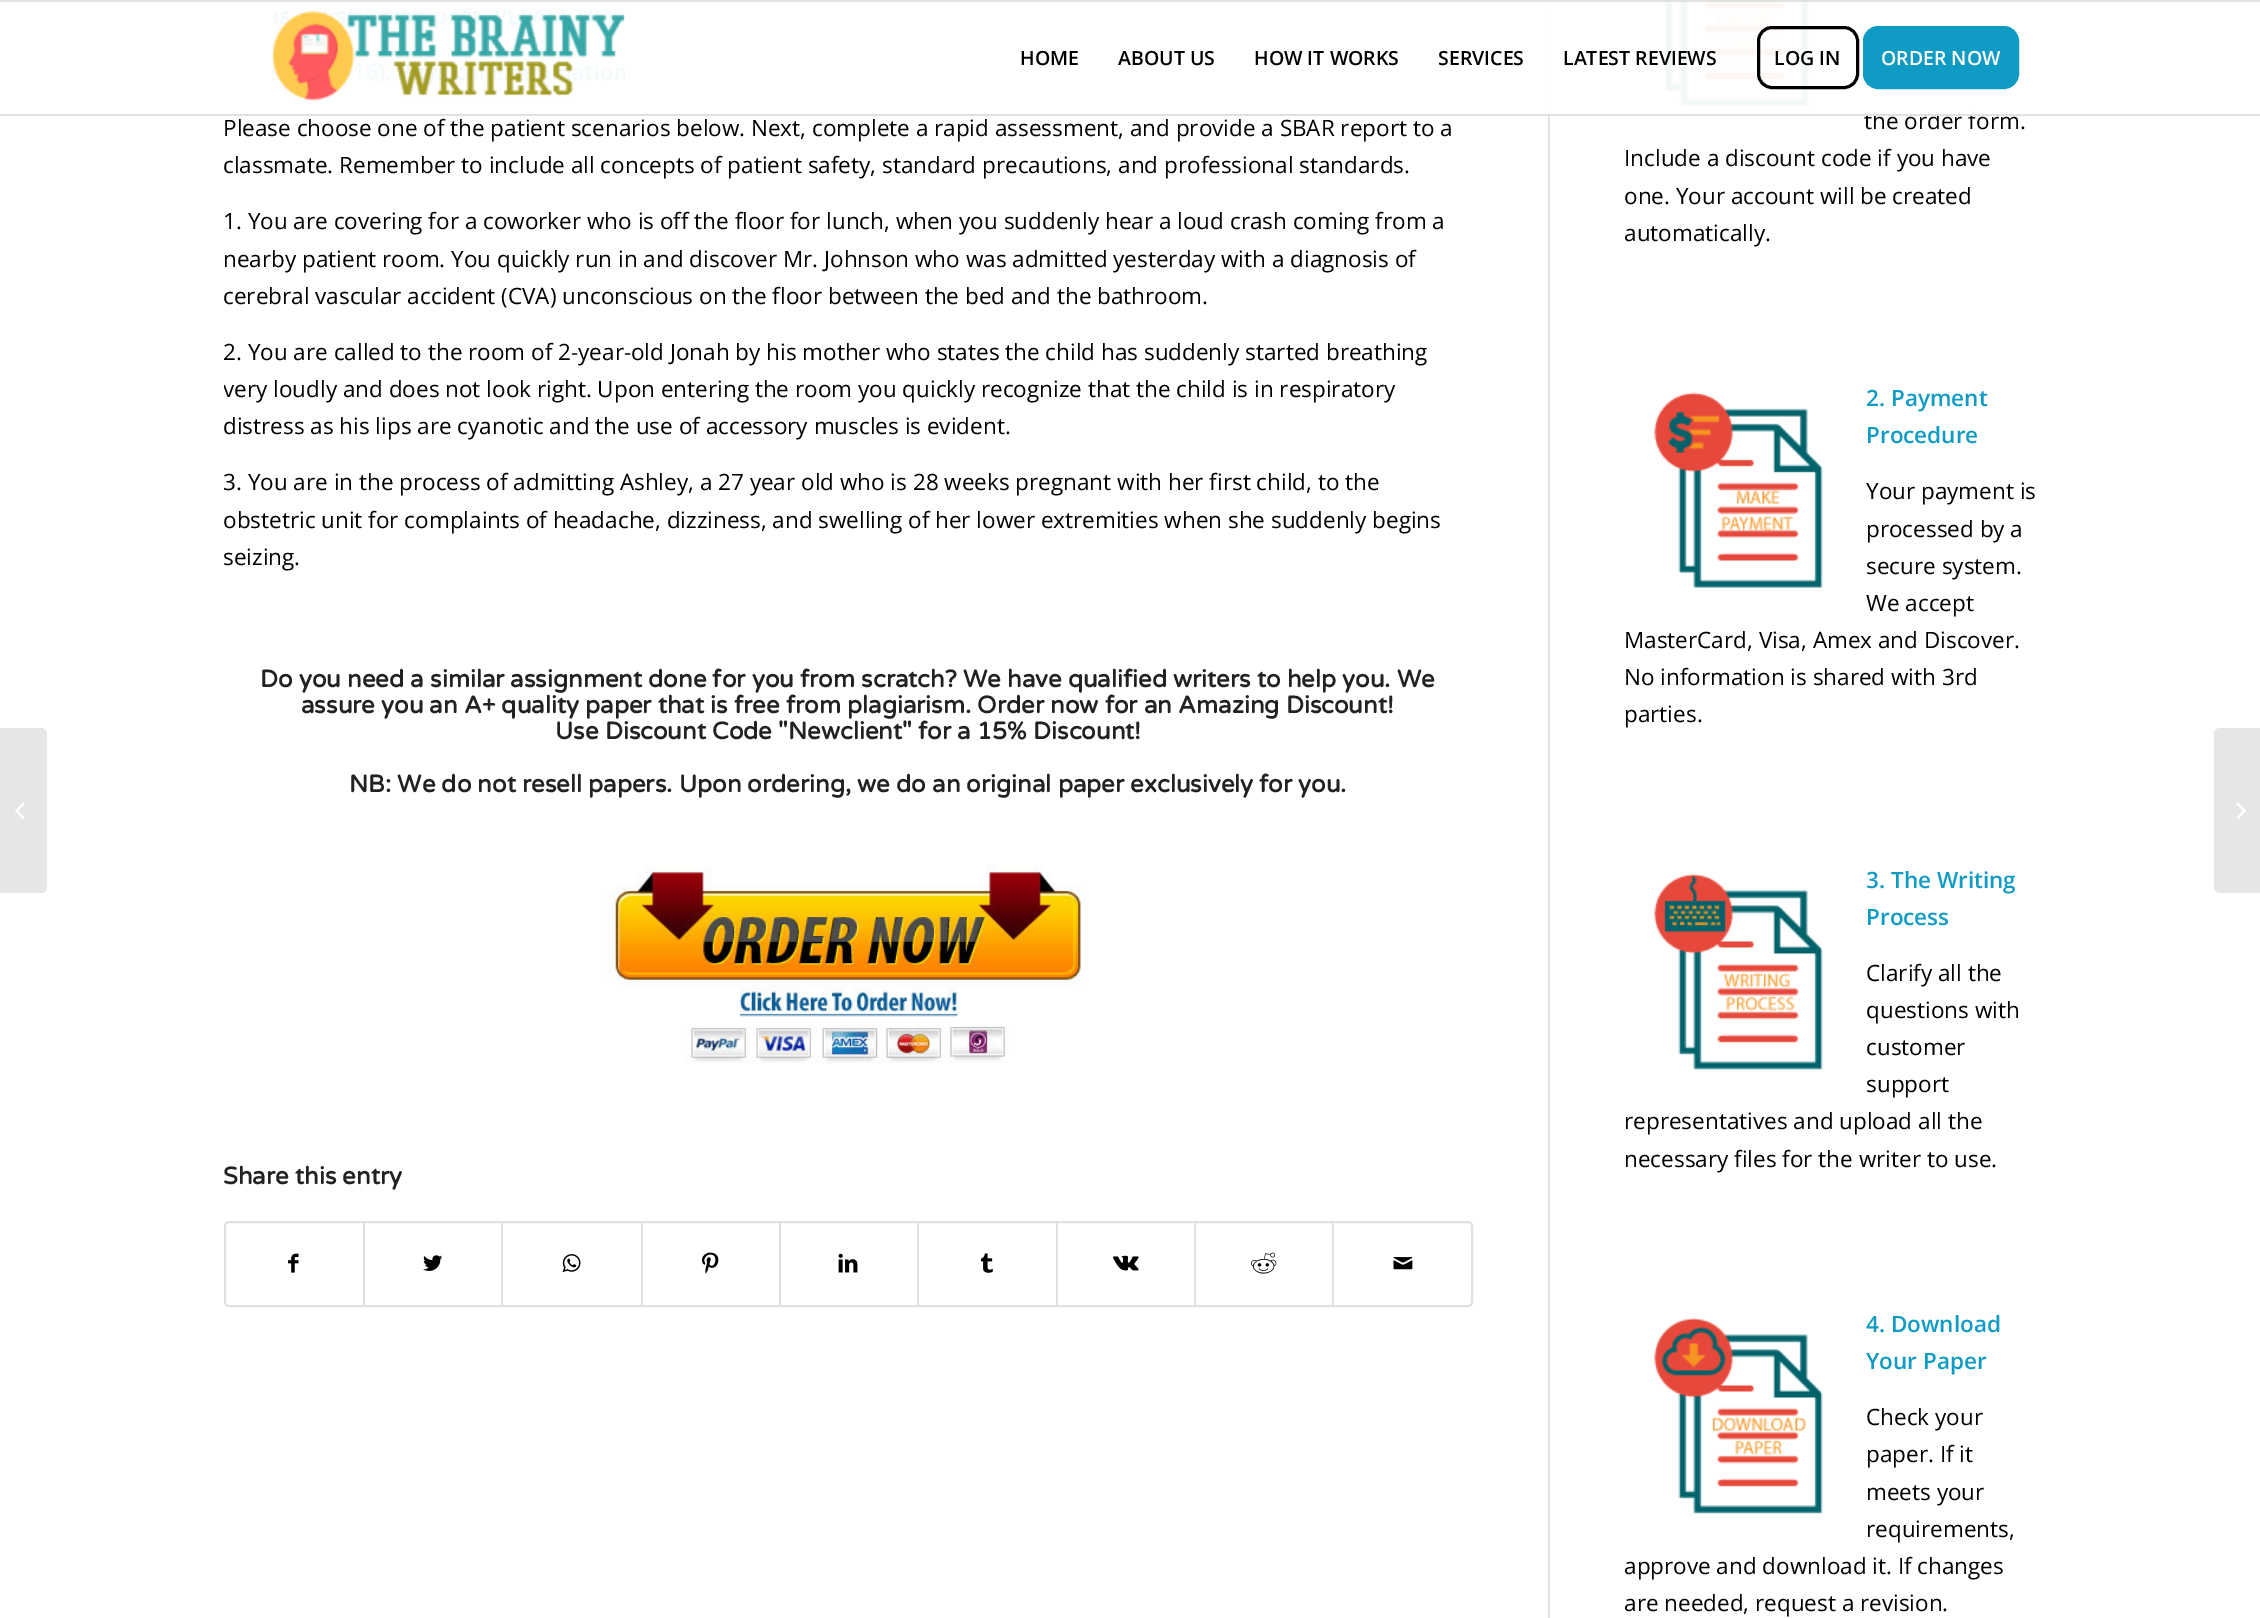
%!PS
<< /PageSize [2260 1618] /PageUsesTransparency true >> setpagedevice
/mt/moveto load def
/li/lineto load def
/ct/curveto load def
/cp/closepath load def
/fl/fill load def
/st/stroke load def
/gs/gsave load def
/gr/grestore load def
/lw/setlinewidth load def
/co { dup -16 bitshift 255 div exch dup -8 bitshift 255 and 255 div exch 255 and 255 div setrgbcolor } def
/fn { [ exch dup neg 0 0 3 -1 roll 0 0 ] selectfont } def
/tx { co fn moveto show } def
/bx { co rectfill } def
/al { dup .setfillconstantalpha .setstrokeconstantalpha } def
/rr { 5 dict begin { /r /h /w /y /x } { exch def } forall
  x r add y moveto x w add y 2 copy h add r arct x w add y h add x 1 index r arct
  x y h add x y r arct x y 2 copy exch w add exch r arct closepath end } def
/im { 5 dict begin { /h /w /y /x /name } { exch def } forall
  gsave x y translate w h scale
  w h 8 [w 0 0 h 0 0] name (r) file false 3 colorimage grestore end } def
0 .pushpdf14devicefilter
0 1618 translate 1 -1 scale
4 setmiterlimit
0 0 2260 1618 16#FFFFFF bx
1548 0 2 1618 16#E1E1E1 bx
0 0 2260 2 16#E1E1E1 bx
(media/1.raw) 272 10 353 91 im
16#E6E6E6 co
0 728 mt 41 728 li 44.5 728 47 730.5 47 734 ct 47 887 li 47 890.5 44.5 893 41 893 ct 0 893 li cp fl
(media/2.raw) 15 802 10 17 im
(media/3.raw) 607 865 474 199 im
16#E1E1E1 co
2 lw
225 1222 1247 84 4 rr st
(media/4.raw) 288 1253 11 20 im
363 1223 2 82 16#E1E1E1 bx
(media/5.raw) 423 1255 20 16 im
501 1223 2 82 16#E1E1E1 bx
(media/6.raw) 562 1254 19 19 im
641 1223 2 82 16#E1E1E1 bx
(media/7.raw) 702 1252 17 22 im
779 1223 2 82 16#E1E1E1 bx
(media/8.raw) 838 1253 20 20 im
917 1223 2 82 16#E1E1E1 bx
(media/9.raw) 981 1253 12 20 im
1056 1223 2 82 16#E1E1E1 bx
(media/10.raw) 1113 1255 26 16 im
1194 1223 2 82 16#E1E1E1 bx
(media/11.raw) 1251 1252 26 22 im
1332 1223 2 82 16#E1E1E1 bx
(media/12.raw) 1393 1257 20 13 im
(media/13.raw) 1664 2 146 105 im
(media/14.raw) 1654 392 169 196 im
(media/15.raw) 1654 873 169 197 im
(media/16.raw) 1654 1317 169 197 im
16#E6E6E6 co
2220 728 mt 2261 728 li 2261 893 li 2220 893 li 2216.5 893 2214 890.5 2214 887 ct 2214 734 li 2214 730.5 2216.5 728 2220 728 ct cp fl
(media/17.raw) 2236 802 10 17 im
(HOME) 1020 65 /OpenSans-SemiBold 19.5 16#000000 tx
(ABOUT US) 1118 65 /OpenSans-SemiBold 19.5 16#000000 tx
(HOW IT WORKS) 1254 65 /OpenSans-SemiBold 19.5 16#000000 tx
(SERVICES) 1438 65 /OpenSans-SemiBold 19.5 16#000000 tx
(Please choose one of the patient scenarios below. Next, complete a rapid assessment, and provide a SBAR report to a) 223 136 /OpenSans-Regular 22.5 16#000000 tx
(classmate. Remember to include all concepts of patient safety, standard precautions, and professional standards.) 223 173 /OpenSans-Regular 22.5 16#000000 tx
(1. You are covering for a coworker who is off the floor for lunch, when you suddenly hear a loud crash coming from a) 223 229 /OpenSans-Regular 22.5 16#000000 tx
(nearby patient room. You quickly run in and discover Mr. Johnson who was admitted yesterday with a diagnosis of) 223 267 /OpenSans-Regular 22.5 16#000000 tx
(cerebral vascular accident \(CVA\) unconscious on the floor between the bed and the bathroom.) 223 304 /OpenSans-Regular 22.5 16#000000 tx
(2. You are called to the room of 2-year-old Jonah by his mother who states the child has suddenly started breathing) 223 360 /OpenSans-Regular 22.5 16#000000 tx
gs
224 0 1324 1457 rectclip
(very loudly and does not look right. Upon entering the room you quickly recognize that the child is in respiratory) 223 397 /OpenSans-Regular 22.5 16#000000 tx
gr
(distress as his lips are cyanotic and the use of accessory muscles is evident.) 223 434 /OpenSans-Regular 22.5 16#000000 tx
gs
224 0 1324 1457 rectclip
(3. You are in the process of admitting Ashley, a 27 year old who is 28 weeks pregnant with her first child, to the) 223 490 /OpenSans-Regular 22.5 16#000000 tx
gr
(obstetric unit for complaints of headache, dizziness, and swelling of her lower extremities when she suddenly begins) 223 528 /OpenSans-Regular 22.5 16#000000 tx
(seizing.) 223 565 /OpenSans-Regular 22.5 16#000000 tx
(Do you need a similar assignment done for you from scratch? We have qualified writers to help you. We) 260 687 /VarelaRound-Bold 24 16#222222 tx
(assure you an A+ quality paper that is free from plagiarism. Order now for an Amazing Discount!) 301 713 /VarelaRound-Bold 24 16#222222 tx
(Use Discount Code "Newclient" for a 15% Discount!) 555 739 /VarelaRound-Bold 24 16#222222 tx
(NB: We do not resell papers. Upon ordering, we do an original paper exclusively for you.) 349 792 /VarelaRound-Bold 24 16#222222 tx
(Share this entry) 223 1184 /VarelaRound-Bold 24 16#222222 tx
(the order form.) 1864 129 /OpenSans-Regular 22.5 16#000000 tx
0.95 al
1548 2 430 112 16#FFFFFF bx
1 al
16#109BC5 co
1864.5 27.5 153 60 13.5 rr gs fl gr
3 lw
st
(ORDER NOW) 1881 65 /OpenSans-SemiBold 19.5 16#FFFFFF tx
16#000000 co
1758.5 27.5 99 60 13.5 rr st
(LOG IN) 1774 65 /OpenSans-SemiBold 19.5 16#000000 tx
(LATEST REVIEWS) 1563 65 /OpenSans-SemiBold 19.5 16#000000 tx
0 114 2260 2 16#E1E1E1 bx
(Include a discount code if you have) 1624 166 /OpenSans-Regular 22.5 16#000000 tx
(one. Your account will be created) 1624 204 /OpenSans-Regular 22.5 16#000000 tx
(automatically.) 1624 241 /OpenSans-Regular 22.5 16#000000 tx
(2. Payment) 1866 406 /OpenSans-SemiBold 22.5 16#109BC5 tx
(Procedure) 1866 443 /OpenSans-SemiBold 22.5 16#109BC5 tx
(Your payment is) 1866 499 /OpenSans-Regular 22.5 16#000000 tx
(processed by a) 1866 537 /OpenSans-Regular 22.5 16#000000 tx
(secure system.) 1866 574 /OpenSans-Regular 22.5 16#000000 tx
(We accept) 1866 611 /OpenSans-Regular 22.5 16#000000 tx
(MasterCard, Visa, Amex and Discover.) 1624 648 /OpenSans-Regular 22.5 16#000000 tx
(No information is shared with 3rd) 1624 685 /OpenSans-Regular 22.5 16#000000 tx
(parties.) 1624 722 /OpenSans-Regular 22.5 16#000000 tx
(3. The Writing) 1866 888 /OpenSans-SemiBold 22.5 16#109BC5 tx
(Process) 1866 925 /OpenSans-SemiBold 22.5 16#109BC5 tx
(Clarify all the) 1866 981 /OpenSans-Regular 22.5 16#000000 tx
(questions with) 1866 1018 /OpenSans-Regular 22.5 16#000000 tx
(customer) 1866 1055 /OpenSans-Regular 22.5 16#000000 tx
(support) 1866 1092 /OpenSans-Regular 22.5 16#000000 tx
(representatives and upload all the) 1624 1129 /OpenSans-Regular 22.5 16#000000 tx
(necessary files for the writer to use.) 1624 1167 /OpenSans-Regular 22.5 16#000000 tx
(4. Download) 1866 1332 /OpenSans-SemiBold 22.5 16#109BC5 tx
(Your Paper) 1866 1369 /OpenSans-SemiBold 22.5 16#109BC5 tx
(Check your) 1866 1425 /OpenSans-Regular 22.5 16#000000 tx
(paper. If it) 1866 1462 /OpenSans-Regular 22.5 16#000000 tx
(meets your) 1866 1500 /OpenSans-Regular 22.5 16#000000 tx
(requirements,) 1866 1537 /OpenSans-Regular 22.5 16#000000 tx
(approve and download it. If changes) 1624 1574 /OpenSans-Regular 22.5 16#000000 tx
(are needed, request a revision.) 1624 1611 /OpenSans-Regular 22.5 16#000000 tx
.poppdf14devicefilter showpage
